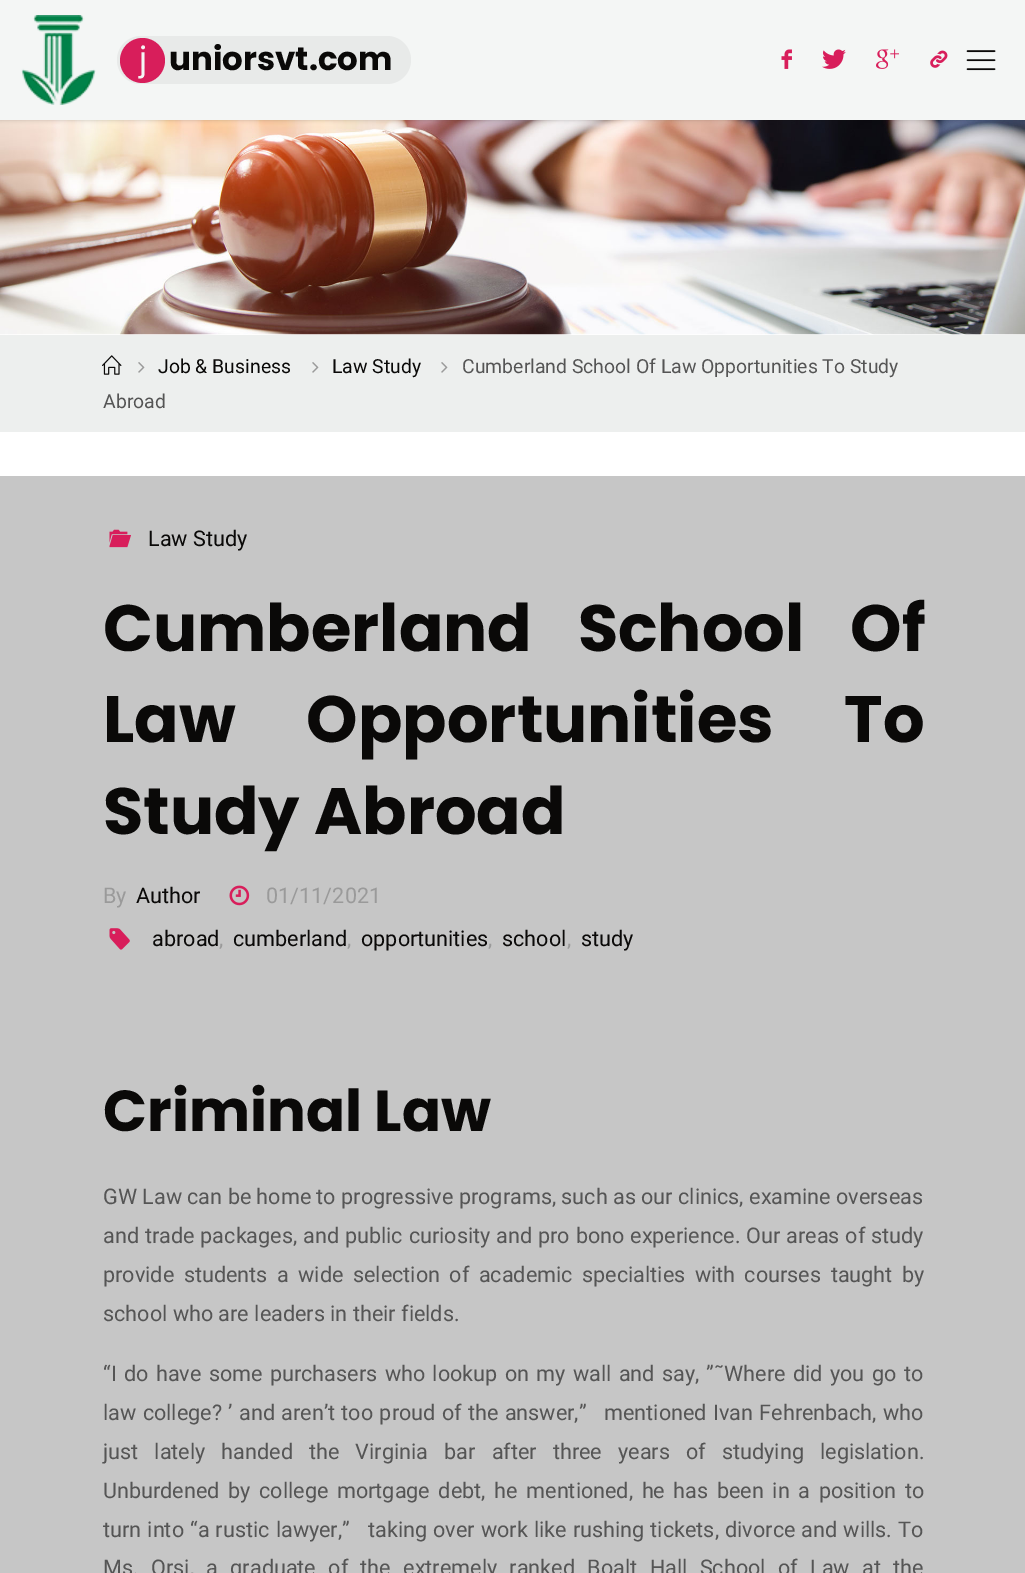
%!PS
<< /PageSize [1025 1573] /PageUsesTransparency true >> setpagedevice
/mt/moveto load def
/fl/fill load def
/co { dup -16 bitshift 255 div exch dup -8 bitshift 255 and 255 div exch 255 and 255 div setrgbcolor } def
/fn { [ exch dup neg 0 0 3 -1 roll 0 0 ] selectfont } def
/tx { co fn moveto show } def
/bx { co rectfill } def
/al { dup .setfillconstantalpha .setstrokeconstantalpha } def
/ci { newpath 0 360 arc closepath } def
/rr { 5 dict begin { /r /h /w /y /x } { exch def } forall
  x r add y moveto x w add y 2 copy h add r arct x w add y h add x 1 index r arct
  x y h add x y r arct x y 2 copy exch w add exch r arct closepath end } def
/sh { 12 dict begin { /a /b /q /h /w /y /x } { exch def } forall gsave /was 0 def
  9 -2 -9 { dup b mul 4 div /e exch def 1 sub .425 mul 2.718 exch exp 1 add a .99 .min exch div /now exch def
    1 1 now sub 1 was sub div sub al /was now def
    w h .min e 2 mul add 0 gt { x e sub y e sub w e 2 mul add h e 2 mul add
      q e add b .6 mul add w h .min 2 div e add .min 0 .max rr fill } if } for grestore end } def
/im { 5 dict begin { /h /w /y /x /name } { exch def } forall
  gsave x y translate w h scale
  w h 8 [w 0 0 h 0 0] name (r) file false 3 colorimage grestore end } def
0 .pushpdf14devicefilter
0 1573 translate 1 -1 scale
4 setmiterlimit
0 0 1025 1573 16#FFFFFF bx
(media/7.raw) 0 120 1025 215 im
16#000000 co
0 0 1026 120 0 2 .2 sh
0 0 1025 120 16#F4F6F5 bx
(media/1.raw) 21 15 75 90 im
16#E8EAE9 co
117 36 294 48 24 rr fl
16#D81E5B co
142.5 60.5 22.5 ci fl
(media/2.raw) 781 49 11 20 im
(media/3.raw) 822 49 24 20 im
(media/4.raw) 876 49 23 20 im
(media/5.raw) 930 50 18 18 im
(media/6.raw) 966 50 30 21 im
0 335 1025 97 16#EDEFEE bx
(media/8.raw) 102 355 20 20 im
(media/9.raw) 138 362 7 11 im
(media/9.raw) 312 362 7 11 im
(media/9.raw) 441 362 7 11 im
0 476 1025 1097 16#C6C6C6 bx
(media/10.raw) 109 529 22 19 im
(media/11.raw) 229 885 21 21 im
(media/12.raw) 109 928 21 22 im
(j) 139 70 /Poppins-Regular 32.5 16#F4F6F5 tx
(uniorsvt.com) 169 70 /Poppins-Bold 32.5 16#0A0908 tx
(Job & Business) 158 373 /Roboto-Regular 19.4 16#0A0908 tx
(Law Study) 332 373 /Roboto-Regular 19.4 16#0A0908 tx
(Cumberland School Of Law Opportunities To Study) 462 373 /Roboto-Regular 19.4 16#555555 tx
(Abroad) 103 408 /Roboto-Regular 19.4 16#555555 tx
(Law Study) 148 546 /Roboto-Regular 21.6 16#0A0908 tx
/Poppins-Bold 65.5 fn
103 651 mt 32 0 32 (Cumberland School Of) widthshow
103 742 mt 57 0 32 (Law Opportunities To) widthshow
(Study Abroad) 103 834 /Poppins-Bold 65.5 16#0A0908 tx
(By) 103 903 /Roboto-Regular 21.6 16#9A9A9A tx
(Author) 136 903 /Roboto-Regular 21.6 16#0A0908 tx
(01/11/2021) 266 903 /Roboto-Regular 21.6 16#9A9A9A tx
(abroad) 152 946 /Roboto-Regular 21.6 16#0A0908 tx
(,) 219 946 /Roboto-Regular 21.6 16#9A9A9A tx
(cumberland) 233 946 /Roboto-Regular 21.6 16#0A0908 tx
(,) 347 946 /Roboto-Regular 21.6 16#9A9A9A tx
(opportunities) 361 946 /Roboto-Regular 21.6 16#0A0908 tx
(,) 488 946 /Roboto-Regular 21.6 16#9A9A9A tx
(school) 502 946 /Roboto-Regular 21.6 16#0A0908 tx
(,) 567 946 /Roboto-Regular 21.6 16#9A9A9A tx
(study) 581 946 /Roboto-Regular 21.6 16#0A0908 tx
(Criminal Law) 103 1131 /Poppins-Bold 57.75 16#0A0908 tx
(GW Law can be home to progressive programs, such as our clinics, examine overseas) 103 1204 /Roboto-Regular 21.6 16#555555 tx
103 1243 mt .5 0 32 (and trade packages, and public curiosity and pro bono experience. Our areas of study) widthshow
103 1282 mt 4.1 0 32 (provide students a wide selection of academic specialties with courses taught by) widthshow
(school who are leaders in their fields.) 103 1321 /Roboto-Regular 21.6 16#555555 tx
103 1381 mt 2 0 32 (“I do have some purchasers who lookup on my wall and say, ”˜Where did you go to) widthshow
103 1420 mt 1 0 32 (law college? ’ and aren’t too proud of the answer,”) widthshow
604 1420 mt 1 0 32 (mentioned Ivan Fehrenbach, who) widthshow
103 1459 mt 10.75 0 32 (just lately handed the Virginia bar after three years of studying legislation.) widthshow
103 1498 mt 3.25 0 32 (Unburdened by college mortgage debt, he mentioned, he has been in a position to) widthshow
103 1537 mt .75 0 32 (turn into “a rustic lawyer,”) widthshow
368 1537 mt .75 0 32 (taking over work like rushing tickets, divorce and wills. To) widthshow
103 1575 mt 7 0 32 (Ms. Orsi, a graduate of the extremely ranked Boalt Hall School of Law at the) widthshow
.poppdf14devicefilter showpage
